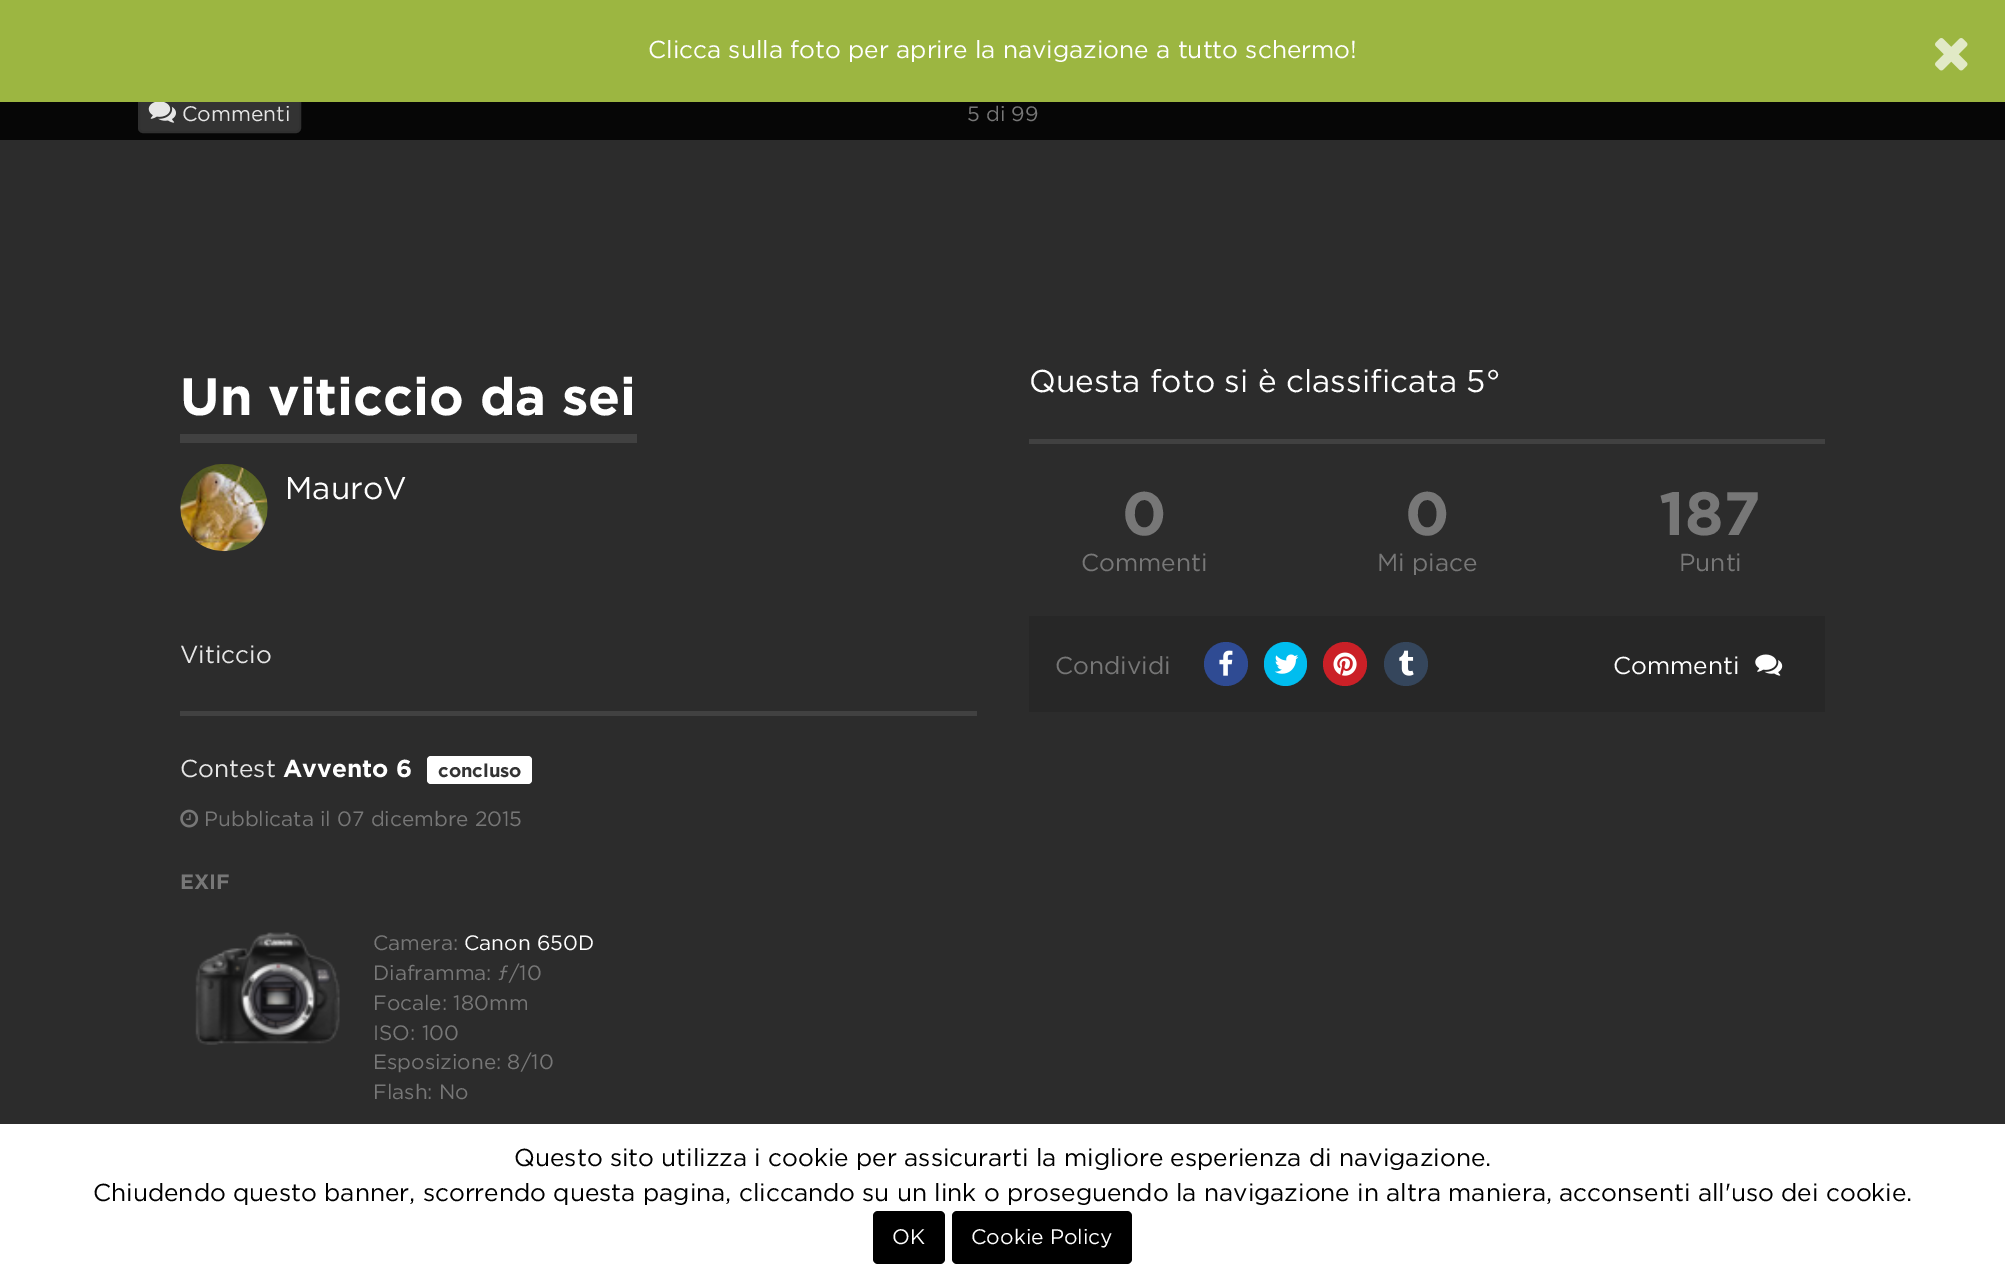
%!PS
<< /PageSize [2005 1281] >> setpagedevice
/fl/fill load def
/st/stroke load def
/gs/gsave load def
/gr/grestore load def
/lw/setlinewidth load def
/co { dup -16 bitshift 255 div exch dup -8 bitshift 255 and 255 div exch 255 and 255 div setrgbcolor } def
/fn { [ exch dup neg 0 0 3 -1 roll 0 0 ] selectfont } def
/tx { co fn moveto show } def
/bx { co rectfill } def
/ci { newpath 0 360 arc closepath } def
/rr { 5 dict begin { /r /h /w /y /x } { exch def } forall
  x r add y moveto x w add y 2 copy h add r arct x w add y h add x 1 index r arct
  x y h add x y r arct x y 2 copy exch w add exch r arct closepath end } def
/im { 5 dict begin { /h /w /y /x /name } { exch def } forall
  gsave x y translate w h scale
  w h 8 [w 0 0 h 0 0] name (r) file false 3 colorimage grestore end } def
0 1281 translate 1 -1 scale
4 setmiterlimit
0 0 2005 1281 16#2C2C2C bx
0 102 2005 38 16#060606 bx
16#333333 co
139 96 161 36 4 rr gs fl gr
16#303030 co
2 lw
st
0 0 2005 102 16#9CB641 bx
(media/1.raw) 1935 38 33 33 im
(media/2.raw) 148 102 28 21 im
180 434 457 9 16#414141 bx
(media/3.raw) 180 464 88 88 im
180 711 797 5 16#414141 bx
16#FFFFFF co
427 756 105 28 4 rr fl
(media/4.raw) 180 809 19 19 im
(media/5.raw) 195 932 145 113 im
1029 439 796 5 16#414141 bx
1029 616 796 96 16#272727 bx
16#2F4B93 co
1226 664 22 ci fl
(media/6.raw) 1219 650 14 26 im
16#00BDEF co
1264 642 43 44 21.5 rr fl
(media/7.raw) 1274 654 25 20 im
16#CB2027 co
1345 664 22 ci fl
(media/8.raw) 1333 652 24 24 im
16#35465C co
1406 664 22 ci fl
(media/9.raw) 1399 650 15 26 im
(media/10.raw) 1755 654 28 22 im
0 1124 2005 157 16#FFFFFF bx
16#000000 co
873 1211 72 53 5 rr fl
952 1211 180 53 5 rr fl
(Clicca sulla foto per aprire la navigazione a tutto schermo!) 648 58 /Gotham-Regular 24.5 16#FFFFFF tx
(Commenti) 182 121 /Gotham-Regular 21 16#E6E6E6 tx
(5 di 99) 967 121 /Gotham-Regular 20.8 16#777777 tx
(Un viticcio da sei) 180 415 /Gotham-Bold 52.5 16#FFFFFF tx
(MauroV) 285 499 /Gotham-Regular 31.5 16#FFFFFF tx
(Viticcio) 180 663 /Gotham-Regular 24.5 16#E6E6E6 tx
(Contest) 180 777 /Gotham-Regular 24.5 16#E6E6E6 tx
(Avvento 6) 283 777 /Gotham-Bold 24.5 16#FFFFFF tx
(concluso) 438 777 /Gotham-Bold 18.5 16#333333 tx
(Pubblicata il 07 dicembre 2015) 204 826 /Gotham-Regular 20.8 16#777777 tx
(EXIF) 180 889 /Gotham-Bold 20.8 16#777777 tx
(Camera:) 373 950 /Gotham-Regular 20.8 16#777777 tx
(Canon 650D) 464 950 /Gotham-Regular 20.8 16#FFFFFF tx
(Diaframma: ƒ/10) 373 980 /Gotham-Regular 20.8 16#777777 tx
(Focale: 180mm) 373 1010 /Gotham-Regular 20.8 16#777777 tx
(ISO: 100) 373 1040 /Gotham-Regular 20.8 16#777777 tx
(Esposizione: 8/10) 373 1069 /Gotham-Regular 20.8 16#777777 tx
(Flash: No) 373 1099 /Gotham-Regular 20.8 16#777777 tx
(Questa foto si è classificata 5°) 1029 392 /Gotham-Regular 31.5 16#FFFFFF tx
(0) 1122 535 /Gotham-Bold 61 16#777777 tx
(Commenti) 1081 571 /Gotham-Regular 24.5 16#777777 tx
(0) 1405 535 /Gotham-Bold 61 16#777777 tx
(Mi piace) 1377 571 /Gotham-Regular 24.5 16#777777 tx
(187) 1659 535 /Gotham-Bold 61 16#777777 tx
(Punti) 1679 571 /Gotham-Regular 24.5 16#777777 tx
(Condividi) 1055 674 /Gotham-Regular 24.5 16#777777 tx
(Commenti) 1613 674 /Gotham-Regular 24.5 16#FFFFFF tx
(Questo sito utilizza i cookie per assicurarti la migliore esperienza di navigazione.) 514 1166 /Gotham-Regular 24.5 16#000000 tx
(Chiudendo questo banner, scorrendo questa pagina, cliccando su un link o proseguendo la navigazione in altra maniera, acconsenti all'uso dei cookie.) 93 1201 /Gotham-Regular 24.5 16#000000 tx
(OK) 892 1244 /Gotham-Regular 21 16#FFFFFF tx
(Cookie Policy) 971 1244 /Gotham-Regular 21 16#FFFFFF tx
showpage
